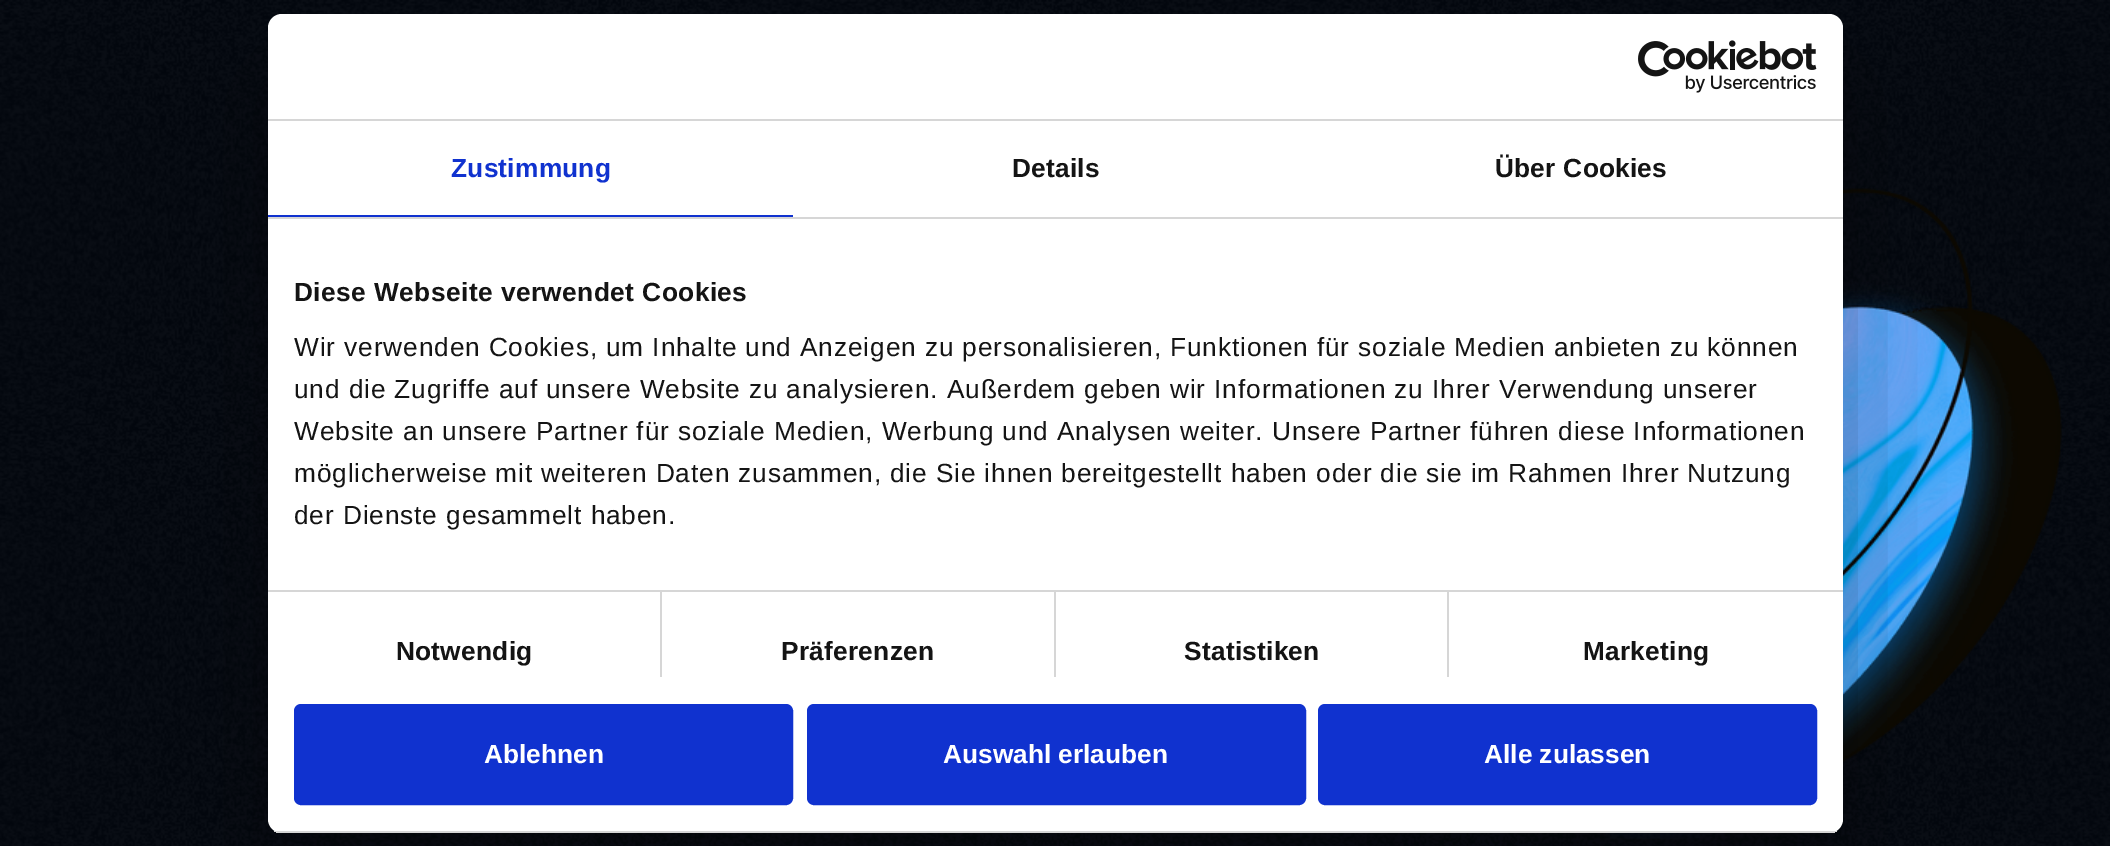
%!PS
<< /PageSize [2110 846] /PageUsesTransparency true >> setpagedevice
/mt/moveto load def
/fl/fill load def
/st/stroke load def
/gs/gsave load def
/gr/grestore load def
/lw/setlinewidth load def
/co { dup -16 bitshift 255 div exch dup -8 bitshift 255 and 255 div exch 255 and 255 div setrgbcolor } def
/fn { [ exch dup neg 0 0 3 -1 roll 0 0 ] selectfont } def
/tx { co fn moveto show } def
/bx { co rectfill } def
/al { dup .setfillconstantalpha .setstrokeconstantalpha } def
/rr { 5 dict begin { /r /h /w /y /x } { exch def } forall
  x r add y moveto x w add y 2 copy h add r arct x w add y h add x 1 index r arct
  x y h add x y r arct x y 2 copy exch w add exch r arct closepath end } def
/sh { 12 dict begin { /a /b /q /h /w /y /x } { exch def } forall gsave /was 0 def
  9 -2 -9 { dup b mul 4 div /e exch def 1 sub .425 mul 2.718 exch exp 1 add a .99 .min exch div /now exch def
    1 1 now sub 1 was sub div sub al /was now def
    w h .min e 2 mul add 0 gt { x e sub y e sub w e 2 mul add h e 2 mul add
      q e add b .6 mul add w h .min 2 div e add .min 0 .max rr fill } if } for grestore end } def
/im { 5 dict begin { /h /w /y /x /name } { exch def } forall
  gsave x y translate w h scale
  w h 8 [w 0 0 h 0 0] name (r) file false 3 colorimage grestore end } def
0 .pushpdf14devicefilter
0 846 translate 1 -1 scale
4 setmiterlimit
0 0 2110 846 16#02060D bx
(media/1.raw) 0 0 2110 846 im
(media/2.raw) 1606 188 456 651 im
16#000000 co
268 70 1575 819 14 59.5 .3 sh
16#FFFFFF co
268 14 1575 819 14 rr fl
268 119 1575 2 16#D6D6D6 bx
(media/3.raw) 1638 40 179 53 im
268 217 1575 2 16#D6D6D6 bx
268 215 525 2 16#1032CF bx
268 590 1575 2 16#D6D6D6 bx
660 592 2 85 16#D6D6D6 bx
1054 592 2 85 16#D6D6D6 bx
1447 592 2 85 16#D6D6D6 bx
gs
268 14 1575 819 14 rr clip newpath
268 831 1575 2 16#D6D6D6 bx
gr
16#1032CF co
296 706 495 97 5 rr gs fl gr
4 lw
st
809 706 495 97 5 rr gs fl gr
st
1320 706 495 97 5 rr gs fl gr
st
/LiberationSans-Bold 26.25 fn
451 177 mt .25 0 (Zustimmung) ashow
16#141414 co
1012 177 mt .25 0 (Details) ashow
1495 177 mt .25 0 (Über Cookies) ashow
294 301 mt .45 0 (Diese Webseite verwendet Cookies) ashow
/LiberationSans-Regular 26.25 fn
294 356 mt .88 0 (Wir verwenden Cookies, um Inhalte und Anzeigen zu personalisieren, Funktionen für soziale Medien anbieten zu können) ashow
294 398 mt .88 0 (und die Zugriffe auf unsere Website zu analysieren. Außerdem geben wir Informationen zu Ihrer Verwendung unserer) ashow
294 440 mt .88 0 (Website an unsere Partner für soziale Medien, Werbung und Analysen weiter. Unsere Partner führen diese Informationen) ashow
294 482 mt .88 0 (möglicherweise mit weiteren Daten zusammen, die Sie ihnen bereitgestellt haben oder die sie im Rahmen Ihrer Nutzung) ashow
294 524 mt .88 0 (der Dienste gesammelt haben.) ashow
/LiberationSans-Bold 26.25 fn
396 660 mt .25 0 (Notwendig) ashow
781 660 mt .25 0 (Präferenzen) ashow
1184 660 mt .25 0 (Statistiken) ashow
1583 660 mt .25 0 (Marketing) ashow
(Ablehnen) 484 763 /LiberationSans-Bold 26.25 16#FFFFFF tx
(Auswahl erlauben) 943 763 /LiberationSans-Bold 26.25 16#FFFFFF tx
(Alle zulassen) 1484 763 /LiberationSans-Bold 26.25 16#FFFFFF tx
.poppdf14devicefilter showpage
